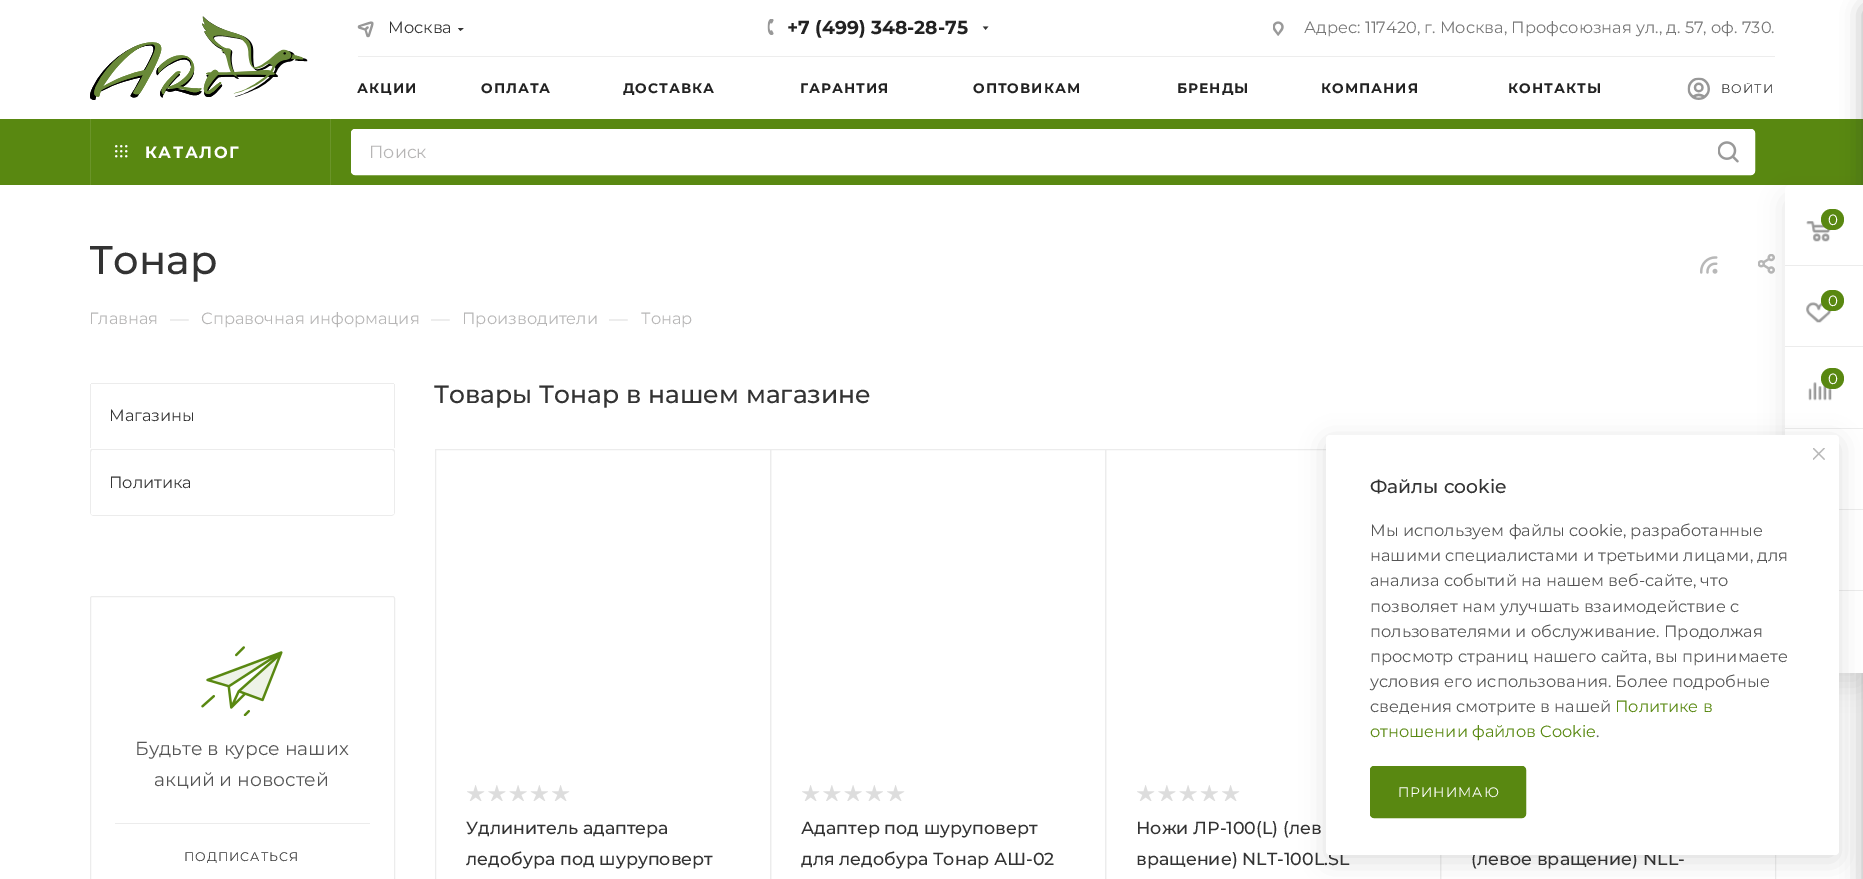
%!PS
<< /PageSize [1863 879] /PageUsesTransparency true >> setpagedevice
/mt/moveto load def
/li/lineto load def
/ct/curveto load def
/cp/closepath load def
/fl/fill load def
/st/stroke load def
/gs/gsave load def
/gr/grestore load def
/co { dup -16 bitshift 255 div exch dup -8 bitshift 255 and 255 div exch 255 and 255 div setrgbcolor } def
/fn { [ exch dup neg 0 0 3 -1 roll 0 0 ] selectfont } def
/tx { co fn moveto show } def
/bx { co rectfill } def
/al { dup .setfillconstantalpha .setstrokeconstantalpha } def
/rr { 5 dict begin { /r /h /w /y /x } { exch def } forall
  x r add y moveto x w add y 2 copy h add r arct x w add y h add x 1 index r arct
  x y h add x y r arct x y 2 copy exch w add exch r arct closepath end } def
/sh { 12 dict begin { /a /b /q /h /w /y /x } { exch def } forall gsave /was 0 def
  9 -2 -9 { dup b mul 4 div /e exch def 1 sub .425 mul 2.718 exch exp 1 add a .99 .min exch div /now exch def
    1 1 now sub 1 was sub div sub al /was now def
    w h .min e 2 mul add 0 gt { x e sub y e sub w e 2 mul add h e 2 mul add
      q e add b .6 mul add w h .min 2 div e add .min 0 .max rr fill } if } for grestore end } def
/im { 5 dict begin { /h /w /y /x /name } { exch def } forall
  gsave x y translate w h scale
  w h 8 [w 0 0 h 0 0] name (r) file false 3 colorimage grestore end } def
0 .pushpdf14devicefilter
0 879 translate 1 -1 scale
4 setmiterlimit
0 0 1863 879 16#FFFFFF bx
(media/1.raw) 90 16 218 84 im
(media/2.raw) 357 21 17 17 im
gs
458 28 6 4 rectclip
16#333333 co
457.5 27.5 mt 464 27.5 li 460.5 31 li cp eofill
gr
(media/3.raw) 767 19 7 16 im
(media/4.raw) 982 26 7 4 im
(media/5.raw) 1273 21 11 15 im
358 56 1417 1 16#EDEDED bx
(media/6.raw) 1687 77 23 23 im
0 119 1863 66 16#598811 bx
330 119 1 66 16#6A9429 bx
90 119 1 66 16#6A9429 bx
(media/7.raw) 115 145 13 13 im
16#FFFFFF co
351.5 129.5 1403 45 3.5 rr gs fl gr
st
(media/8.raw) 1718 141 21 22 im
(media/9.raw) 1700 256 18 18 im
(media/10.raw) 1758 254 17 20 im
gs
90 383 305 133 4 rr clip newpath
91 383 303 1 16#ECECEC bx
gr
394 384 1 64 16#ECECEC bx
90 384 1 64 16#ECECEC bx
92 449 mt 91 449 90 450 90 452 ct 90 512 li 90 514 92 516 94 516 ct 391 516 li 393 516 395 514 395 512 ct 395 452 li 395 450 394 449 392 449 ct cp 92 450 mt 92 450 91 451 91 452 ct 91 514 li 91 514 92 515 92 515 ct 392 515 li 393 515 394 514 394 514 ct 394 452 li 394 451 393 450 392 450 ct cp eofill
90.5 596.5 304 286 2 rr st
(media/11.raw) 201 646 82 70 im
115 823 255 1 16#ECECEC bx
435.5 449.5 335 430 rectstroke
(media/12.raw) 467 785 18 16 im
(media/13.raw) 488 785 18 16 im
(media/14.raw) 509 785 18 16 im
(media/15.raw) 530 785 18 16 im
(media/12.raw) 552 785 18 16 im
770.5 449.5 335 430 rectstroke
(media/12.raw) 802 785 18 16 im
(media/13.raw) 823 785 18 16 im
(media/14.raw) 844 785 18 16 im
(media/15.raw) 865 785 18 16 im
(media/12.raw) 887 785 18 16 im
1105.5 449.5 335 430 rectstroke
(media/12.raw) 1137 785 18 16 im
(media/13.raw) 1158 785 18 16 im
(media/14.raw) 1179 785 18 16 im
(media/15.raw) 1200 785 18 16 im
(media/12.raw) 1222 785 18 16 im
1440.5 449.5 335 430 rectstroke
16#2C2C2C co
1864 8 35 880 2.5 11 .4 sh
16#000000 co
1785 198 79 487 5 12.5 .1 sh
16#FFFFFF co
1790 185 mt 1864 185 li 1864 673 li 1790 673 li 1787 673 1785 671 1785 668 ct 1785 190 li 1785 187 1787 185 1790 185 ct cp fl
1785 265 78 1 16#ECECEC bx
(media/16.raw) 1806 221 25 21 im
16#598811 co
1821 209 23 21 10.5 rr fl
1785 346 78 1 16#ECECEC bx
(media/17.raw) 1806 302 26 21 im
16#598811 co
1821 290 23 21 10.5 rr fl
1785 428 78 1 16#ECECEC bx
(media/18.raw) 1808 382 24 19 im
16#598811 co
1821 368 23 21 10.5 rr fl
1839 509 24 1 16#ECECEC bx
1839 590 24 1 16#ECECEC bx
16#000000 co
1326 441 513 420 4 12.5 .12 sh
(Москва) 388 33 /Montserrat-Regular 16.25 16#333333 tx
(+7 \(499\) 348-28-75) 787 34 /Montserrat-Bold 18.75 16#222222 tx
(Адрес: 117420, г. Москва, Профсоюзная ул., д. 57, оф. 730.) 1304 33 /Montserrat-Regular 16.25 16#777777 tx
/Montserrat-Bold 13.75 fn
16#222222 co
357 93 mt 1 0 (АКЦИИ) ashow
481 93 mt 1 0 (ОПЛАТА) ashow
623 93 mt 1 0 (ДОСТАВКА) ashow
800 93 mt 1 0 (ГАРАНТИЯ) ashow
973 93 mt 1 0 (ОПТОВИКАМ) ashow
1177 93 mt 1 0 (БРЕНДЫ) ashow
1321 93 mt 1 0 (КОМПАНИЯ) ashow
1508 93 mt 1 0 (КОНТАКТЫ) ashow
gs
1710 83 65 15 rectclip
/Montserrat-Regular 12.5 fn
16#333333 co
1721 93 mt 1 0 (ВОЙТИ) ashow
gr
/Montserrat-Bold 16.25 fn
16#FFFFFF co
145 158 mt 1.5 0 (КАТАЛОГ) ashow
(Поиск) 369 158 /Montserrat-Regular 17.5 16#B6B5B5 tx
gs
90 238 1570 45 rectclip
(Тонар) 89 274 /Montserrat-Medium 40 16#333333 tx
gr
(Главная) 89 324 /Montserrat-Regular 16.25 16#B6B5B5 tx
(—) 170 325 /Montserrat-Regular 18.75 16#DDDDDD tx
(Справочная информация) 201 324 /Montserrat-Regular 16.25 16#B6B5B5 tx
(—) 431 325 /Montserrat-Regular 18.75 16#DDDDDD tx
(Производители) 462 324 /Montserrat-Regular 16.25 16#B6B5B5 tx
(—) 609 325 /Montserrat-Regular 18.75 16#DDDDDD tx
(Тонар) 641 324 /Montserrat-Regular 16.25 16#B6B5B5 tx
(Магазины) 109 421 /Montserrat-Regular 16.25 16#333333 tx
(Политика) 109 488 /Montserrat-Regular 16.25 16#333333 tx
(Будьте в курсе наших) 135 755 /Montserrat-Regular 18.75 16#555555 tx
(акций и новостей) 154 786 /Montserrat-Regular 18.75 16#555555 tx
/Montserrat-Regular 12.5 fn
16#333333 co
184 861 mt 1 0 (ПОДПИСАТЬСЯ) ashow
(Товары Тонар в нашем магазине) 434 403 /Montserrat-Medium 25 16#333333 tx
(Удлинитель адаптера) 466 834 /Montserrat-Medium 17.5 16#333333 tx
(ледобура под шуруповерт) 466 865 /Montserrat-Medium 17.5 16#333333 tx
(Адаптер под шуруповерт) 801 834 /Montserrat-Medium 17.5 16#333333 tx
gs
801 811 274 63 rectclip
(для ледобура Тонар АШ-02) 801 865 /Montserrat-Medium 17.5 16#333333 tx
gr
(Ножи ЛР-100\(L\) \(лев) 1136 834 /Montserrat-Medium 17.5 16#333333 tx
(вращение\) NLT-100L.SL) 1136 865 /Montserrat-Medium 17.5 16#333333 tx
(\(левое вращение\) NLL-) 1471 865 /Montserrat-Medium 17.5 16#333333 tx
(0) 1828 225 /Montserrat-Regular 15 16#FFFFFF tx
(0) 1828 306 /Montserrat-Regular 15 16#FFFFFF tx
(0) 1828 384 /Montserrat-Regular 15 16#FFFFFF tx
1326 435 513 420 4 rr fl
(media/19.raw) 1813 448 12 12 im
(Файлы cookie) 1370 493 /Montserrat-Medium 18.75 16#333333 tx
(Мы используем файлы cookie, разработанные) 1370 536 /Montserrat-Regular 16.25 16#555555 tx
(нашими специалистами и третьими лицами, для) 1370 561 /Montserrat-Regular 16.25 16#555555 tx
(анализа событий на нашем веб-сайте, что) 1370 586 /Montserrat-Regular 16.25 16#555555 tx
(позволяет нам улучшать взаимодействие с) 1370 612 /Montserrat-Regular 16.25 16#555555 tx
(пользователями и обслуживание. Продолжая) 1370 637 /Montserrat-Regular 16.25 16#555555 tx
(просмотр страниц нашего сайта, вы принимаете) 1370 662 /Montserrat-Regular 16.25 16#555555 tx
(условия его использования. Более подробные) 1370 687 /Montserrat-Regular 16.25 16#555555 tx
(сведения смотрите в нашей) 1370 712 /Montserrat-Regular 16.25 16#555555 tx
(Политике в) 1615 712 /Montserrat-Regular 16.25 16#598811 tx
(отношении файлов Cookie) 1370 737 /Montserrat-Regular 16.25 16#598811 tx
(.) 1596 737 /Montserrat-Regular 16.25 16#555555 tx
16#598811 co
1370.5 766.5 155 51 3.5 rr gs fl gr
st
/Montserrat-Regular 13.75 fn
16#FFFFFF co
1398 797 mt 1 0 (ПРИНИМАЮ) ashow
.poppdf14devicefilter showpage
